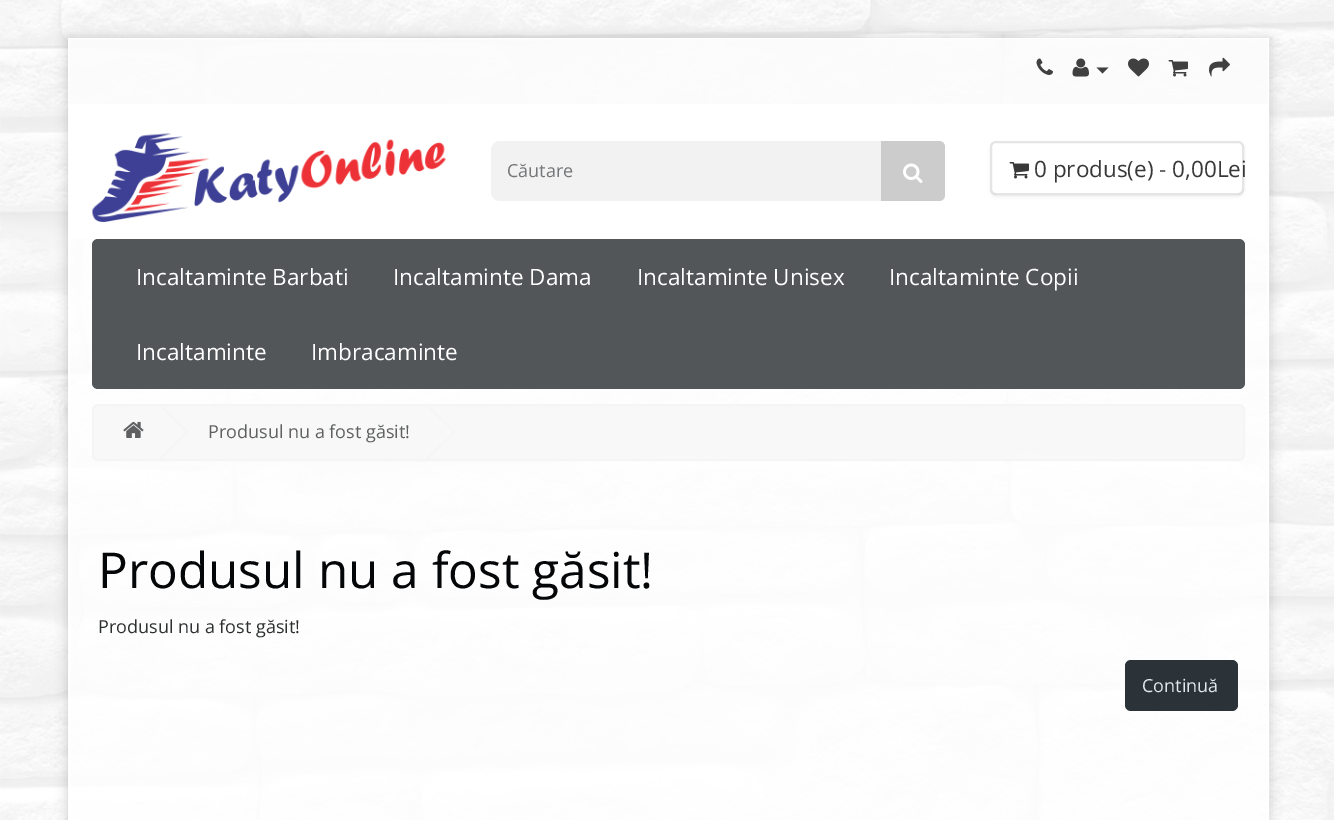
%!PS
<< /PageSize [1334 820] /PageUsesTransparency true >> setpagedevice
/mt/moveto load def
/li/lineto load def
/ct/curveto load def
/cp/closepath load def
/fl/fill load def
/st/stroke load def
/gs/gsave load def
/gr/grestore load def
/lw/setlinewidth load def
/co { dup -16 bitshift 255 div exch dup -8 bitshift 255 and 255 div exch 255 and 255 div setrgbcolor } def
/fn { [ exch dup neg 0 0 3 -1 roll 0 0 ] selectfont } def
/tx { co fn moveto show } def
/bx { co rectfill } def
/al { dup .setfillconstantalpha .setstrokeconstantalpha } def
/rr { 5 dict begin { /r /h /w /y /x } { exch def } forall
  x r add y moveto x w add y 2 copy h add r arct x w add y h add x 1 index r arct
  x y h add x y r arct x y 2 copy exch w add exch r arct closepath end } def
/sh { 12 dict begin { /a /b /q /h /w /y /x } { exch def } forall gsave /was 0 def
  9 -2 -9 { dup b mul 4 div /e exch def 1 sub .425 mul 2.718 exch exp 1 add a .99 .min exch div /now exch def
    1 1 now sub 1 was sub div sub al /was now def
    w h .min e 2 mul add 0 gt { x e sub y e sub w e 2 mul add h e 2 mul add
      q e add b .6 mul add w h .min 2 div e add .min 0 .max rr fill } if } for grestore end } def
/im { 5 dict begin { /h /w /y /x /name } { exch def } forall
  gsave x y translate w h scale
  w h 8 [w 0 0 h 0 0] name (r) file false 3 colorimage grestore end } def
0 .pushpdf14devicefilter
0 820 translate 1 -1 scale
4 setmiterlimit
0 0 1334 820 16#FFFFFF bx
(media/1.raw) 0 0 1334 820 im
gs
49 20 mt 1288 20 li 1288 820 li 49 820 li cp 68 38 mt 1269 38 li 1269 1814 li 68 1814 li cp eoclip newpath
16#050505 co
68 39 1201 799 0 6 .2 sh
gr
0.8 al
69 39 mt 1268 39 li 1268 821 li 69 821 li cp fl
1 al
2 lw
69 39 mt 1268 39 li 1268 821 li 69 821 li cp st
0.6 al
69 39 1199 65 16#FAFAFA bx
1 al
(media/2.raw) 1036 58 17 17 im
(media/3.raw) 1072 58 17 19 im
16#404040 co
1096.5 67.5 mt 1108.5 67.5 li 1102.5 73.5 li cp fl
(media/4.raw) 1128 58 21 19 im
(media/5.raw) 1168 60 20 17 im
(media/6.raw) 1209 57 21 20 im
70 104 1197 135 16#FFFFFF bx
(media/7.raw) 91 133 355 89 im
16#F2F2F2 co
500 141 mt 882 141 li 882 201 li 500 201 li 495 201 491 197 491 192 ct 491 150 li 491 145 495 141 500 141 ct cp fl
16#CCCCCC co
881 141 mt 939 141 li 942.5 141 945 143.5 945 147 ct 945 195 li 945 198.5 942.5 201 939 201 ct 881 201 li cp fl
(media/8.raw) 903 163 20 20 im
gs
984 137 mt 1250 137 li 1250 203 li 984 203 li cp 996 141 mt 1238 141 li 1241.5 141 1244 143.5 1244 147 ct 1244 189 li 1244 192.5 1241.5 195 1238 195 ct 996 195 li 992.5 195 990 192.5 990 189 ct 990 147 li 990 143.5 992.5 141 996 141 ct cp eoclip newpath
16#000000 co
990 143 254 54 6 1.5 .05 sh
gr
0.1 al
16#000000 co
991 142 252 52 5 rr st
1 al
(media/9.raw) 1009 162 20 17 im
16#525659 co
92 239 1153 150 6 rr fl
0.8 al
16#F7F7F7 co
93 405 1151 55 5 rr fl
1 al
16#F5F5F5 co
93 405 1151 55 5 rr st
(media/10.raw) 123 421 21 17 im
160 405.5 mt 161 404.5 li 188.5 432 li 187.5 433 li cp fl
160 458.5 mt 187.5 431 li 188.5 432 li 161 459.5 li cp fl
426.5 405.5 mt 428 404.5 li 455.5 432 li 454.5 433 li cp fl
426.5 458.5 mt 454.5 431 li 455.5 432 li 428 459.5 li cp fl
16#2B3238 co
1125 660 113 51 6 rr fl
(Căutare) 507 177 /OpenSans-Regular 18 16#747678 tx
(0 produs\(e\) - 0,00Lei) 1034 177 /OpenSans-Regular 22.5 16#383838 tx
(Incaltaminte Barbati) 136 285 /OpenSans-Regular 22.5 16#FFFFFF tx
(Incaltaminte Dama) 393 285 /OpenSans-Regular 22.5 16#FFFFFF tx
(Incaltaminte Unisex) 637 285 /OpenSans-Regular 22.5 16#FFFFFF tx
(Incaltaminte Copii) 889 285 /OpenSans-Regular 22.5 16#FFFFFF tx
(Incaltaminte) 136 360 /OpenSans-Regular 22.5 16#FFFFFF tx
(Imbracaminte) 311 360 /OpenSans-Regular 22.5 16#FFFFFF tx
(Produsul nu a fost găsit!) 208 438 /OpenSans-Regular 18 16#5E6061 tx
(Produsul nu a fost găsit!) 98 588 /OpenSans-Regular 49.5 16#040608 tx
(Produsul nu a fost găsit!) 98 633 /OpenSans-Regular 18 16#2D2F30 tx
(Continuă) 1142 692 /OpenSans-Regular 18 16#E1E8ED tx
.poppdf14devicefilter showpage
